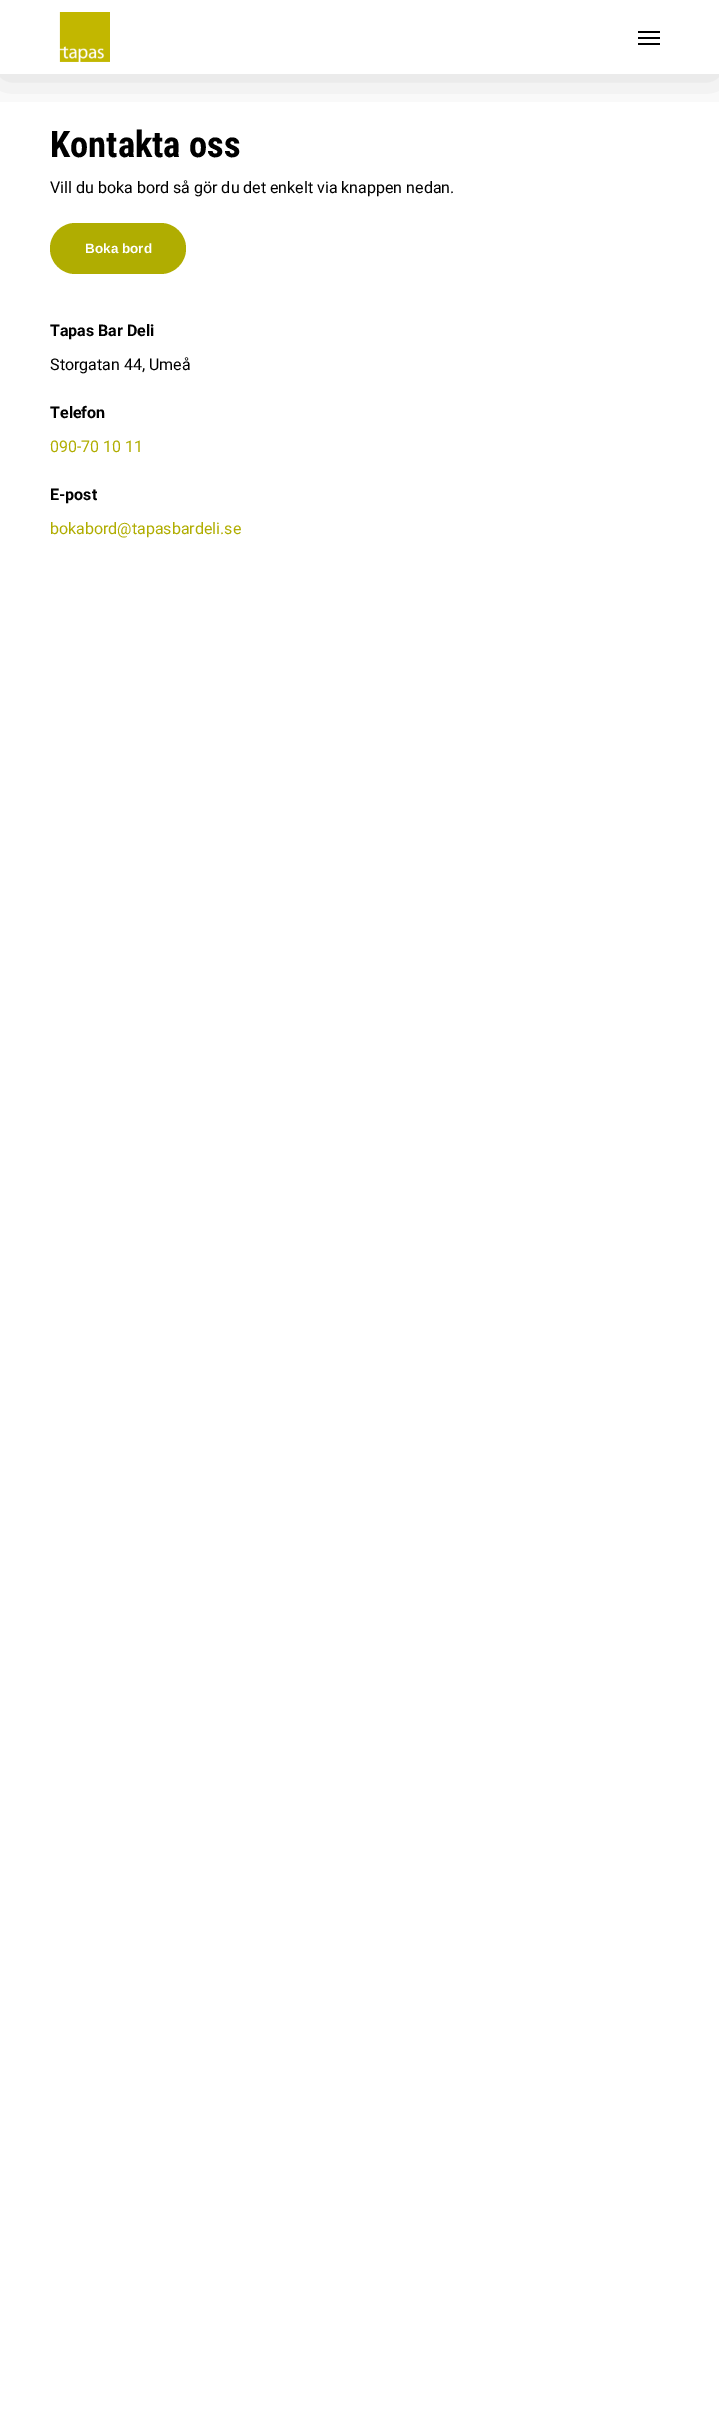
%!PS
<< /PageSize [719 2422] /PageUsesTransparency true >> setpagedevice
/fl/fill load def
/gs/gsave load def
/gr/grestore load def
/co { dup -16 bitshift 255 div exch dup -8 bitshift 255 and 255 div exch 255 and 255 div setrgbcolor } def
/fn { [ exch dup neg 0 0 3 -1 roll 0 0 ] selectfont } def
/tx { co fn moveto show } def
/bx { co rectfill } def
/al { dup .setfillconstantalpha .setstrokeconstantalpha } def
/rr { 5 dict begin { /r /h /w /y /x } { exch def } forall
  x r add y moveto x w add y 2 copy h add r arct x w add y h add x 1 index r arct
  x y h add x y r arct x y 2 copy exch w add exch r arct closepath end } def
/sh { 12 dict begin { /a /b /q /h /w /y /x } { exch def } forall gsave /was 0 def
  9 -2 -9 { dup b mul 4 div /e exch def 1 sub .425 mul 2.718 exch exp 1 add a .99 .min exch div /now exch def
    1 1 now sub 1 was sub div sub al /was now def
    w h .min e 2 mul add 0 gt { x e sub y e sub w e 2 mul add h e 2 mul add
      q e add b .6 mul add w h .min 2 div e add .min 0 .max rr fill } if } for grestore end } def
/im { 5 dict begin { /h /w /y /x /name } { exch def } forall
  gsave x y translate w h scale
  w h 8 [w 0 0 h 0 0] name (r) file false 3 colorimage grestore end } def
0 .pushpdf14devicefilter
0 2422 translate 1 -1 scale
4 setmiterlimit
0 0 719 2422 16#FFFFFF bx
gs
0 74 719 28 rectclip
16#000000 co
0 3 719 74 0 22.5 .15 sh
gr
(media/1.raw) 59 12 51 50 im
638 31 22 2 16#000000 bx
638 43 22 2 16#000000 bx
638 37 22 2 16#000000 bx
16#B0AD01 co
50 223 136 51 25.5 rr fl
(Kontakta oss) 50 157 /RobotoCondensed-Bold 36.5 16#000000 tx
(Vill du boka bord så gör du det enkelt via knappen nedan.) 50 193 /Roboto-Regular 16 16#000000 tx
(Boka bord) 85 253 /LiberationSans-Bold 13.5 16#FFFFFF tx
(Tapas Bar Deli) 50 336 /Roboto-Bold 16 16#000000 tx
(Storgatan 44, Umeå) 50 370 /Roboto-Regular 16 16#000000 tx
(Telefon) 50 418 /Roboto-Bold 16 16#000000 tx
(090-70 10 11) 50 452 /Roboto-Regular 16 16#B0AD01 tx
(E-post) 50 500 /Roboto-Bold 16 16#000000 tx
(bokabord@tapasbardeli.se) 50 534 /Roboto-Regular 16 16#B0AD01 tx
.poppdf14devicefilter showpage
